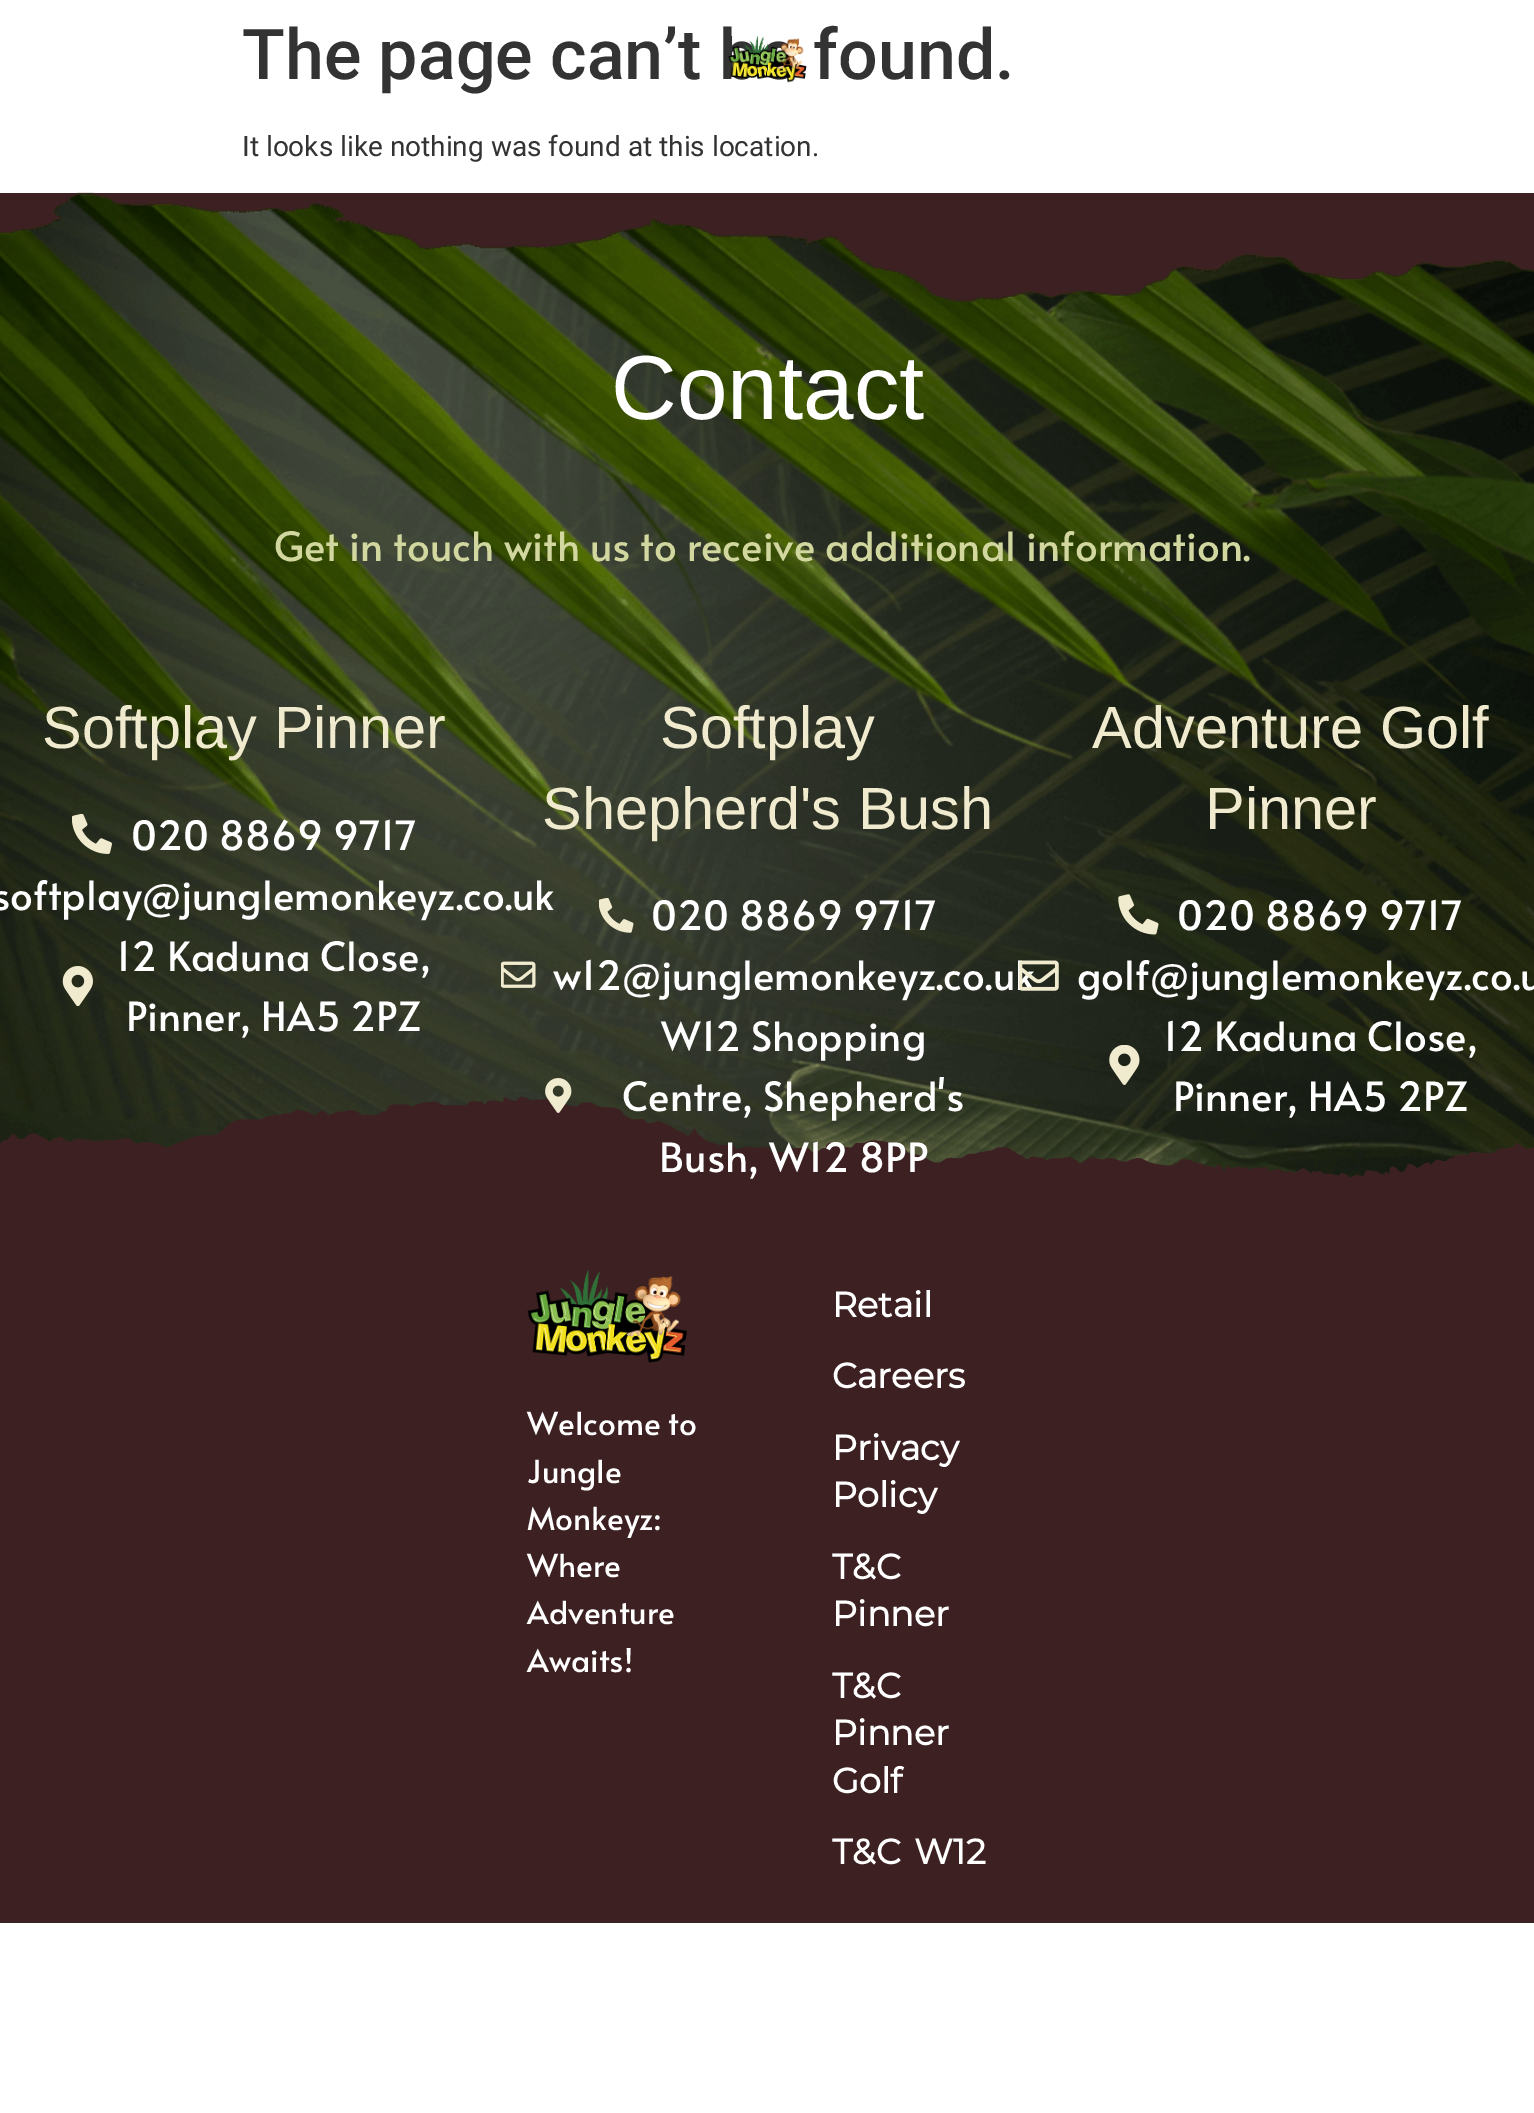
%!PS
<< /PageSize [1534 2113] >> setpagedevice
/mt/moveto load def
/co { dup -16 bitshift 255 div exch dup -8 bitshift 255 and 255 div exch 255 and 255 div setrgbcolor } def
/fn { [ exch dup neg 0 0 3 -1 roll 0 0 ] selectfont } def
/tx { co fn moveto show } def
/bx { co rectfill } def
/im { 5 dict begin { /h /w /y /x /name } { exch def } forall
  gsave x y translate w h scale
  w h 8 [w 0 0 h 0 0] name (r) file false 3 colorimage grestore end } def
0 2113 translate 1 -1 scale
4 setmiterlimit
0 0 1534 2113 16#FFFFFF bx
0 193 1534 110 16#3D2122 bx
(media/2.raw) 0 192 1534 986 im
(media/3.raw) 72 814 40 40 im
(media/4.raw) 62 966 31 40 im
(media/5.raw) 599 898 35 35 im
(media/6.raw) 501 961 35 27 im
(media/11.raw) 0 1096 1534 138 im
(media/7.raw) 545 1078 27 35 im
(media/8.raw) 1118 894 41 41 im
(media/10.raw) 1109 1045 31 40 im
0 1234 1534 689 16#3D2122 bx
(media/12.raw) 527 1269 160 94 im
(The page can’t be found.) 242 79 /Roboto-Medium 70 16#333333 tx
(It looks like nothing was found at this location.) 242 156 /Roboto-Regular 28 16#333333 tx
(media/1.raw) 728 36 79 47 im
(Contact) 611 419 /LiberationSans-Regular 91 16#FFFFFF tx
(Get in touch with us to receive additional information.) 274 561 /Alata-Regular 40.25 16#D2D79F tx
(Softplay Pinner) 42 748 /LiberationSans-Regular 59.5 16#F0EBCE tx
(020 8869 9717) 131 850 /Alata-Regular 40.25 16#FFFFFF tx
(softplay@junglemonkeyz.co.uk) -8 910 /Alata-Regular 40.25 16#FFFFFF tx
(12 Kaduna Close,) 116 971 /Alata-Regular 40.25 16#FFFFFF tx
(Pinner, HA5 2PZ) 126 1031 /Alata-Regular 40.25 16#FFFFFF tx
(Softplay) 660 748 /LiberationSans-Regular 59.5 16#F0EBCE tx
(Shepherd's Bush) 542 829 /LiberationSans-Regular 59.5 16#F0EBCE tx
(020 8869 9717) 651 930 /Alata-Regular 40.25 16#FFFFFF tx
(w12@junglemonkeyz.co.uk) 553 990 /Alata-Regular 40.25 16#FFFFFF tx
(W12 Shopping) 661 1051 /Alata-Regular 40.25 16#FFFFFF tx
(Centre, Shepherd's) 622 1111 /Alata-Regular 40.25 16#FFFFFF tx
(Bush, W12 8PP) 659 1172 /Alata-Regular 40.25 16#FFFFFF tx
(Adventure Golf) 1092 748 /LiberationSans-Regular 59.5 16#F0EBCE tx
(Pinner) 1205 829 /LiberationSans-Regular 59.5 16#F0EBCE tx
(020 8869 9717) 1177 930 /Alata-Regular 40.25 16#FFFFFF tx
(media/9.raw) 1019 960 40 31 im
(golf@junglemonkeyz.co.u) 1077 990 /Alata-Regular 40.25 16#FFFFFF tx
(12 Kaduna Close,) 1163 1051 /Alata-Regular 40.25 16#FFFFFF tx
(Pinner, HA5 2PZ) 1173 1111 /Alata-Regular 40.25 16#FFFFFF tx
(Welcome to) 527 1435 /Alata-Regular 31.5 16#FFFFFF tx
(Jungle) 527 1483 /Alata-Regular 31.5 16#FFFFFF tx
(Monkeyz:) 527 1530 /Alata-Regular 31.5 16#FFFFFF tx
(Where) 527 1577 /Alata-Regular 31.5 16#FFFFFF tx
(Adventure) 527 1624 /Alata-Regular 31.5 16#FFFFFF tx
(Awaits!) 527 1672 /Alata-Regular 31.5 16#FFFFFF tx
(Retail) 832 1317 /Montserrat-Bold 35 16#FFFFFF tx
(Careers) 832 1388 /Montserrat-Bold 35 16#FFFFFF tx
(Privacy) 832 1460 /Montserrat-Bold 35 16#FFFFFF tx
(Policy) 832 1507 /Montserrat-Bold 35 16#FFFFFF tx
(T&C) 832 1579 /Montserrat-Bold 35 16#FFFFFF tx
(Pinner) 832 1626 /Montserrat-Bold 35 16#FFFFFF tx
(T&C) 832 1698 /Montserrat-Bold 35 16#FFFFFF tx
(Pinner) 832 1745 /Montserrat-Bold 35 16#FFFFFF tx
(Golf) 832 1793 /Montserrat-Bold 35 16#FFFFFF tx
832 1864 mt 5 0 32 (T&C W12) widthshow
showpage
